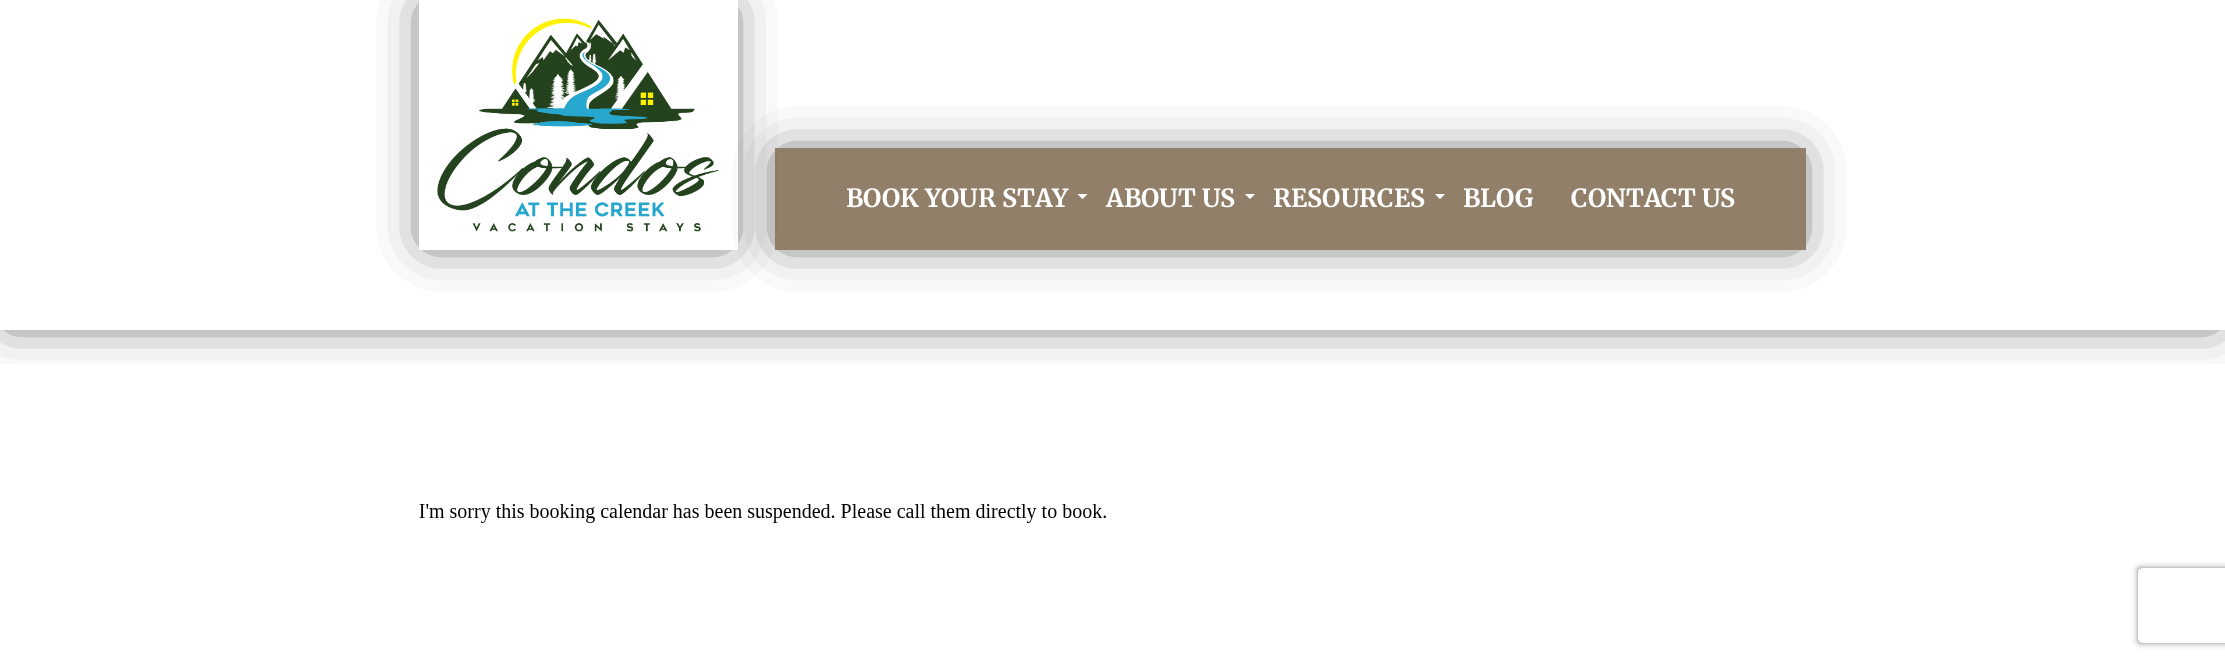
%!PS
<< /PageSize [2225 660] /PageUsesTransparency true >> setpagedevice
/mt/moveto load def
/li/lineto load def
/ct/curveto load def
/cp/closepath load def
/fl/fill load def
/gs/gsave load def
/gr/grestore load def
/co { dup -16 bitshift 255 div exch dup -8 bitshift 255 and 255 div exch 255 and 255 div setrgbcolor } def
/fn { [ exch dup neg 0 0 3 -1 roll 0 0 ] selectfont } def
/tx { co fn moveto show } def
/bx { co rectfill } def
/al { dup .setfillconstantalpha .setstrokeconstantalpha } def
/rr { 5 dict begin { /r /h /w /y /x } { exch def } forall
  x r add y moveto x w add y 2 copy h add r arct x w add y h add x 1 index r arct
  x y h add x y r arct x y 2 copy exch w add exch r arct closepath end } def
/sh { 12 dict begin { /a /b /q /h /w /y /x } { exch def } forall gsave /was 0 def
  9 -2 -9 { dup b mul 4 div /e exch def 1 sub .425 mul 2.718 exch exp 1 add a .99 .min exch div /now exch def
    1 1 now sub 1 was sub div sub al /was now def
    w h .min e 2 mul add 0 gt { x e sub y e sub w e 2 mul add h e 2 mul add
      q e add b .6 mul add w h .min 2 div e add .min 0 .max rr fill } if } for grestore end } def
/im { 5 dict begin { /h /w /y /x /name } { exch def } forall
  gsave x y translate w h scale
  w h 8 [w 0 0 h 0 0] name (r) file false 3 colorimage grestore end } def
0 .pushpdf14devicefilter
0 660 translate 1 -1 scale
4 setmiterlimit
0 0 2225 660 16#FFFFFF bx
775 148 1031 102 16#917F69 bx
gs
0 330 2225 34 rectclip
16#000000 co
9 10 2205 310 0 23 .75 sh
gr
16#000000 co
428 10 298 230 0 23 .75 sh
419 0 319 250 16#FFFFFF bx
(media/1.raw) 437 18 282 214 im
gs
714 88 mt 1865 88 li 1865 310 li 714 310 li cp 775 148 mt 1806 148 li 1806 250 li 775 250 li cp eoclip newpath
16#000000 co
784 158 1011 82 0 23 .75 sh
gr
1077.5 194 mt 1087.5 194 li 1082.5 199 li cp fl
1245 194 mt 1255 194 li 1250 199 li cp fl
1435 194 mt 1445 194 li 1440 199 li cp fl
(media/2.raw) 419 504 687 19 im
gs
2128 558 mt 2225 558 li 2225 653 li 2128 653 li cp 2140.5 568 mt 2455.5 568 li 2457 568 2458 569 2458 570.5 ct 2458 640.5 li 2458 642 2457 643 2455.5 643 ct 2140.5 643 li 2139 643 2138 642 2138 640.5 ct 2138 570.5 li 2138 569 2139 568 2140.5 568 ct cp eoclip newpath
16#808080 co
2138 568 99 75 2.5 3 1 sh
gr
(BOOK YOUR STAY) 846 207 /Merriweather-Bold 25 16#FFFFFF tx
(ABOUT US) 1106 207 /Merriweather-Bold 25 16#FFFFFF tx
(RESOURCES) 1273 207 /Merriweather-Bold 25 16#FFFFFF tx
(BLOG) 1463 207 /Merriweather-Bold 25 16#FFFFFF tx
(CONTACT US) 1571 207 /Merriweather-Bold 25 16#FFFFFF tx
.poppdf14devicefilter showpage
